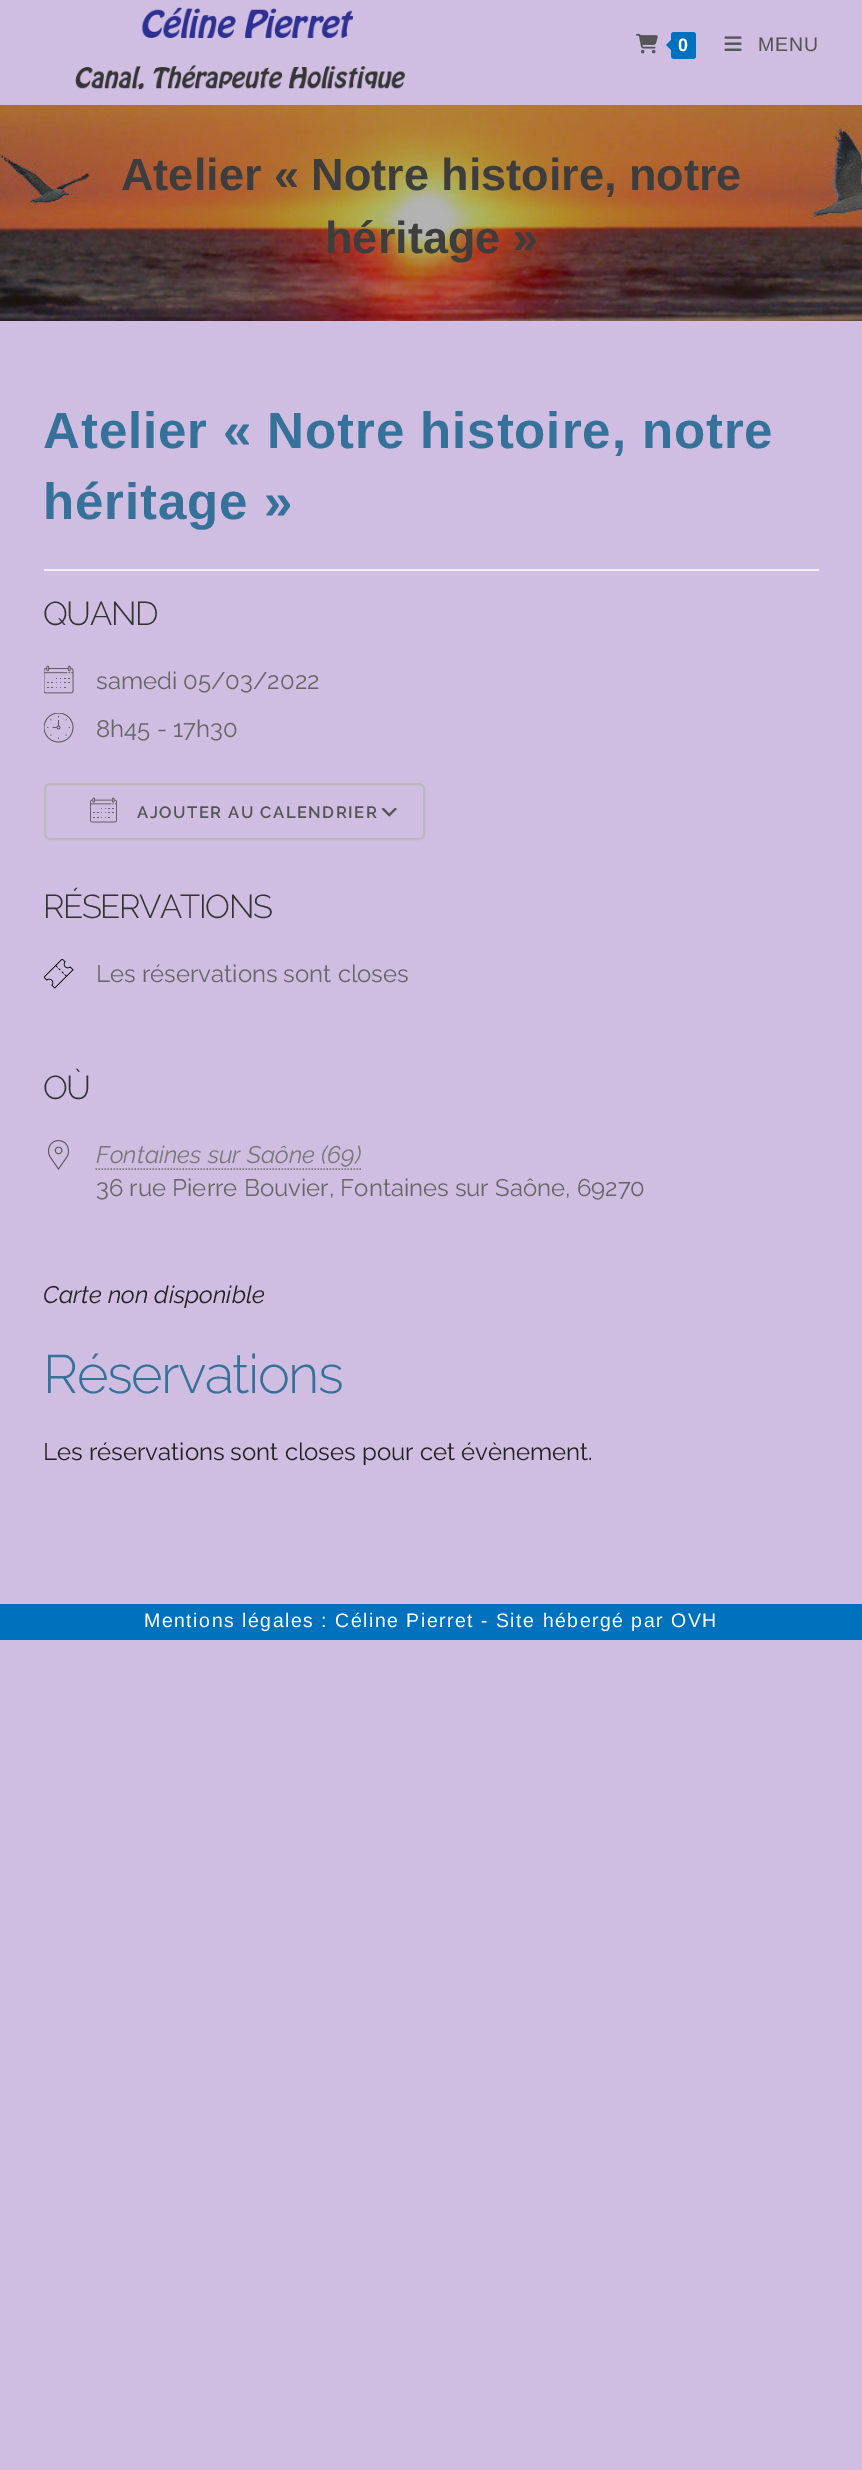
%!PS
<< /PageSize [862 2470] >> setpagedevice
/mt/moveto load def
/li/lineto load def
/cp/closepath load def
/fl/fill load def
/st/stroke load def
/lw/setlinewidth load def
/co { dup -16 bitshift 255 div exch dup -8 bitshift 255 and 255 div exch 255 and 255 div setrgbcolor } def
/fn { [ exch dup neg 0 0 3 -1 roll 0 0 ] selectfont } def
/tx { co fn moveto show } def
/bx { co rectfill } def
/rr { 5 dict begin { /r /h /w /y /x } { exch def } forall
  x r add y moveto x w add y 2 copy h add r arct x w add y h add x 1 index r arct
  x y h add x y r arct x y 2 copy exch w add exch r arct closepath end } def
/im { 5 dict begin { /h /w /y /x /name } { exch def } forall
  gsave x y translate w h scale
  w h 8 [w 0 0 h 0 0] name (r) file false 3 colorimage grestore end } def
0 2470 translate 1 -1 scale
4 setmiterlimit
0 0 862 2470 16#CFBEE2 bx
(media/1.raw) 75 7 331 83 im
(media/2.raw) 636 33 22 21 im
16#0071BC co
671 32 25 27 3 rr fl
673.5 37.5 mt 673.5 52.5 li 666 45 li cp fl
(media/3.raw) 724 36 18 15 im
(media/4.raw) 0 105 862 216 im
44 569 775 2 16#F1F1F1 bx
(media/5.raw) 44 665 30 29 im
(media/6.raw) 44 713 30 30 im
(media/7.raw) 381 807 16 10 im
16#BABABA co
2 lw
45 784 379 55 5 rr st
(media/8.raw) 90 797 27 26 im
(media/9.raw) 44 959 30 30 im
(media/10.raw) 48 1140 21 30 im
16#787878 co
1.5 lw
[1.5 1.5] 0 setdash
95.5 1169 mt 361 1169 li st
0 1604 862 36 16#0071BC bx
/LiberationSans-Bold 18 fn
16#FFFFFF co
678 51 mt .9 0 (0) ashow
/LiberationSans-Regular 19.5 fn
16#545454 co
758 51 mt .9 0 (MENU) ashow
(Atelier « Notre histoire, notre) 121 190 /LiberationSans-Bold 45 16#3D3D3D tx
(héritage ») 325 253 /LiberationSans-Bold 45 16#3D3D3D tx
/LiberationSans-Bold 51 fn
16#367199 co
43 448 mt .9 0 (Atelier « Notre histoire, notre) ashow
43 519 mt .9 0 (héritage ») ashow
/Raleway-Light 33 fn
16#333333 co
43 625 mt -1.5 0 (QUAND) ashow
(samedi 05/03/2022) 96 689 /Raleway-Regular 24 16#666666 tx
(8h45 - 17h30) 96 737 /Raleway-Regular 24 16#666666 tx
/Raleway-SemiBold 16.5 fn
16#545454 co
137 818 mt 1.5 0 (AJOUTER AU CALENDRIER) ashow
/Raleway-Light 33 fn
16#333333 co
43 918 mt -1.5 0 (RÉSERVATIONS) ashow
(Les réservations sont closes) 96 982 /Raleway-Regular 24 16#666666 tx
/Raleway-Light 33 fn
16#333333 co
43 1099 mt -1.5 0 (OÙ) ashow
(Fontaines sur Saône \(69\)) 96 1163 /Raleway-Italic 24 16#787878 tx
(36 rue Pierre Bouvier, Fontaines sur Saône, 69270) 96 1196 /Raleway-Regular 24 16#666666 tx
(Carte non disponible) 43 1303 /Raleway-Italic 24 16#212121 tx
/Raleway-Light 54 fn
16#367199 co
43 1393 mt -1.5 0 (Réservations) ashow
(Les réservations sont closes pour cet évènement.) 43 1460 /Raleway-Regular 24 16#212121 tx
/LiberationSans-Regular 19.5 fn
16#FFFFFF co
144 1627 mt 1.5 0 (Mentions légales : Céline Pierret - Site hébergé par OVH) ashow
showpage
